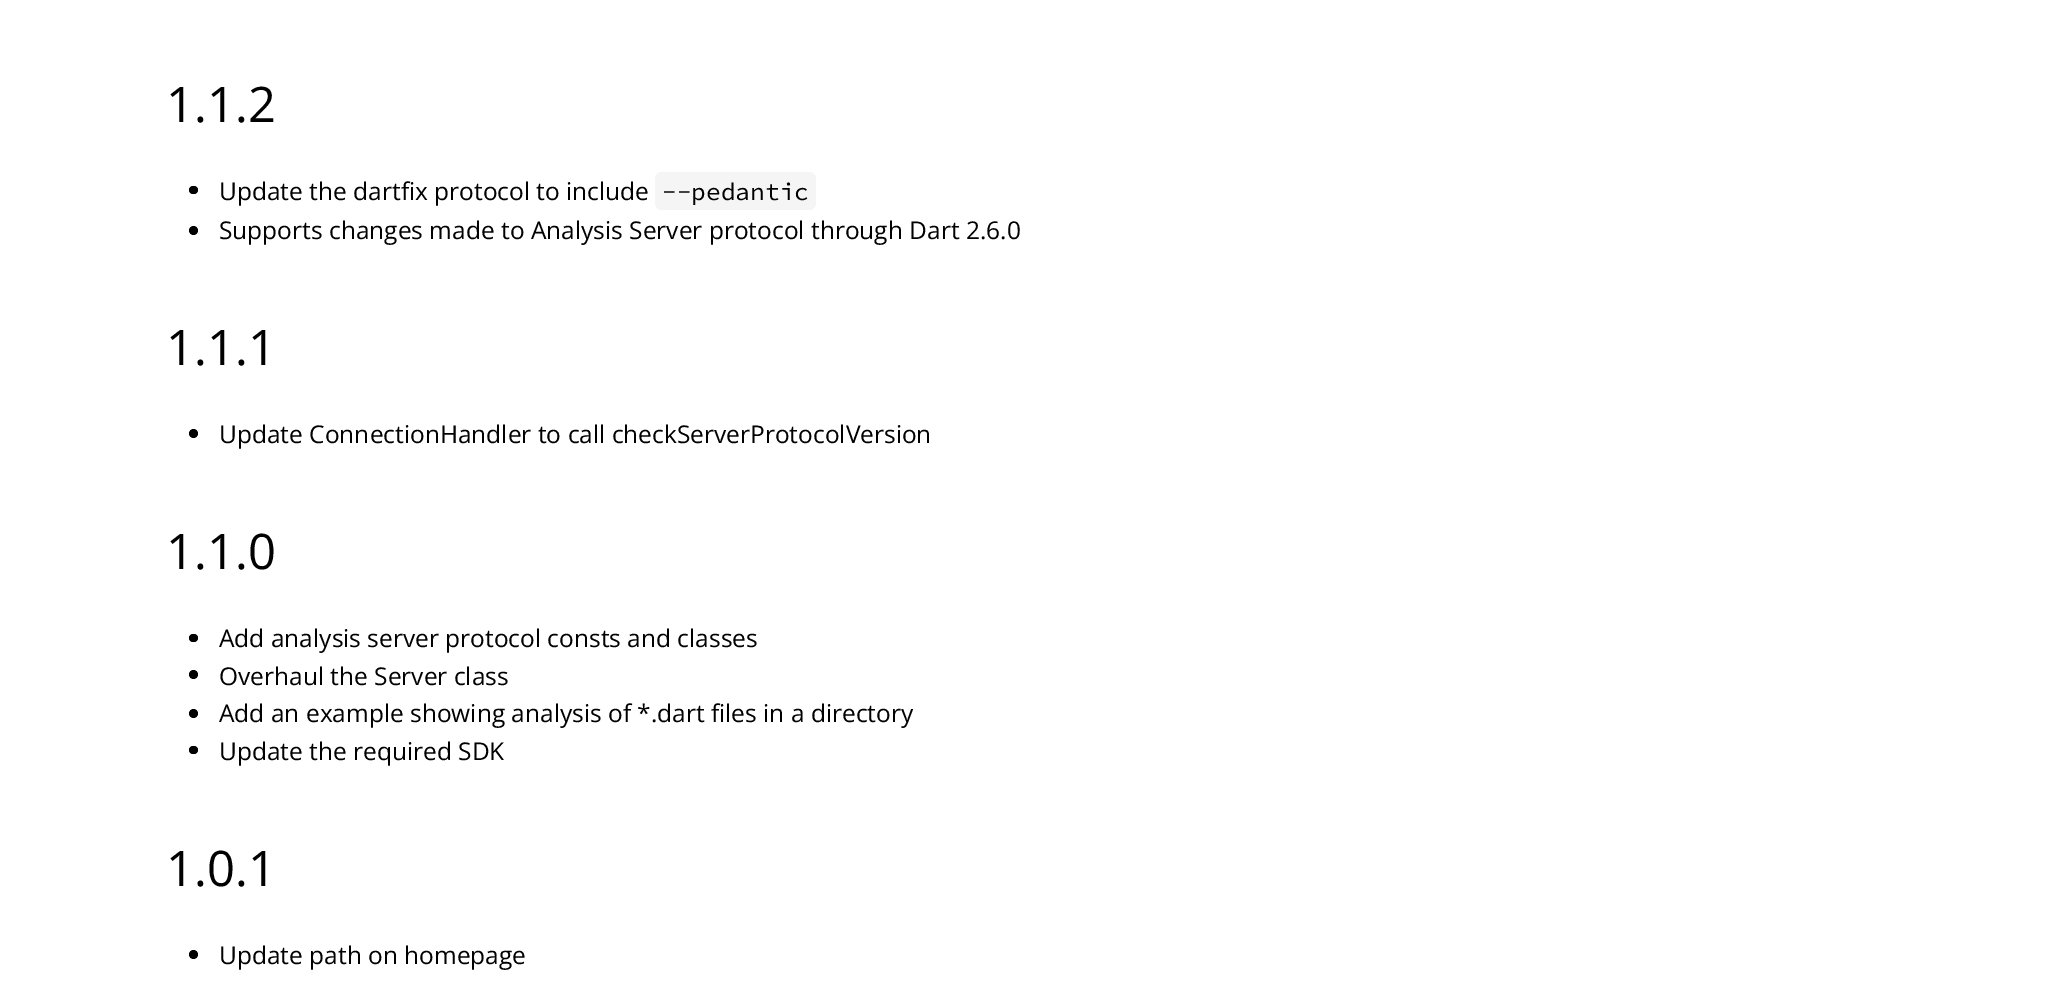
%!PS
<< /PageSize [2046 998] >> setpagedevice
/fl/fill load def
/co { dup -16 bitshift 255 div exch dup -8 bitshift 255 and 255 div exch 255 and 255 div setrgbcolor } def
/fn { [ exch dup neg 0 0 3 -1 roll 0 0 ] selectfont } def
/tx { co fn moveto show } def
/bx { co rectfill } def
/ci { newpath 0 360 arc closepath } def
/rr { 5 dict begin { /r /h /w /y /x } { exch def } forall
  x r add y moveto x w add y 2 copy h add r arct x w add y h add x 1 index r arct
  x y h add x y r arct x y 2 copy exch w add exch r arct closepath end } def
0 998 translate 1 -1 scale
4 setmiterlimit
0 0 2046 998 16#FFFFFF bx
16#000000 co
189 186 9 8 4 rr fl
16#F5F5F5 co
655 172 161 38 7 rr fl
16#000000 co
193.5 230.5 4.5 ci fl
193.5 433.5 4.5 ci fl
189 634 9 8 4 rr fl
193.5 674.5 4.5 ci fl
193.5 713.5 4.5 ci fl
189 746 9 8 4 rr fl
193.5 954.5 4.5 ci fl
(1.1.2) 166 122 /OpenSans-Regular 49 16#000000 tx
(Update the dartfix protocol to include) 219 200 /OpenSans-Regular 24.5 16#000000 tx
(--pedantic) 662 200 /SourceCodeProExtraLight-ExtraLight 24.5 16#000000 tx
(Supports changes made to Analysis Server protocol through Dart 2.6.0) 219 239 /OpenSans-Regular 24.5 16#000000 tx
(1.1.1) 166 365 /OpenSans-Regular 49 16#000000 tx
(Update ConnectionHandler to call checkServerProtocolVersion) 219 443 /OpenSans-Regular 24.5 16#000000 tx
(1.1.0) 166 569 /OpenSans-Regular 49 16#000000 tx
(Add analysis server protocol consts and classes) 219 647 /OpenSans-Regular 24.5 16#000000 tx
(Overhaul the Server class) 219 685 /OpenSans-Regular 24.5 16#000000 tx
(Add an example showing analysis of *.dart files in a directory) 219 722 /OpenSans-Regular 24.5 16#000000 tx
(Update the required SDK) 219 760 /OpenSans-Regular 24.5 16#000000 tx
(1.0.1) 166 886 /OpenSans-Regular 49 16#000000 tx
(Update path on homepage) 219 964 /OpenSans-Regular 24.5 16#000000 tx
showpage
